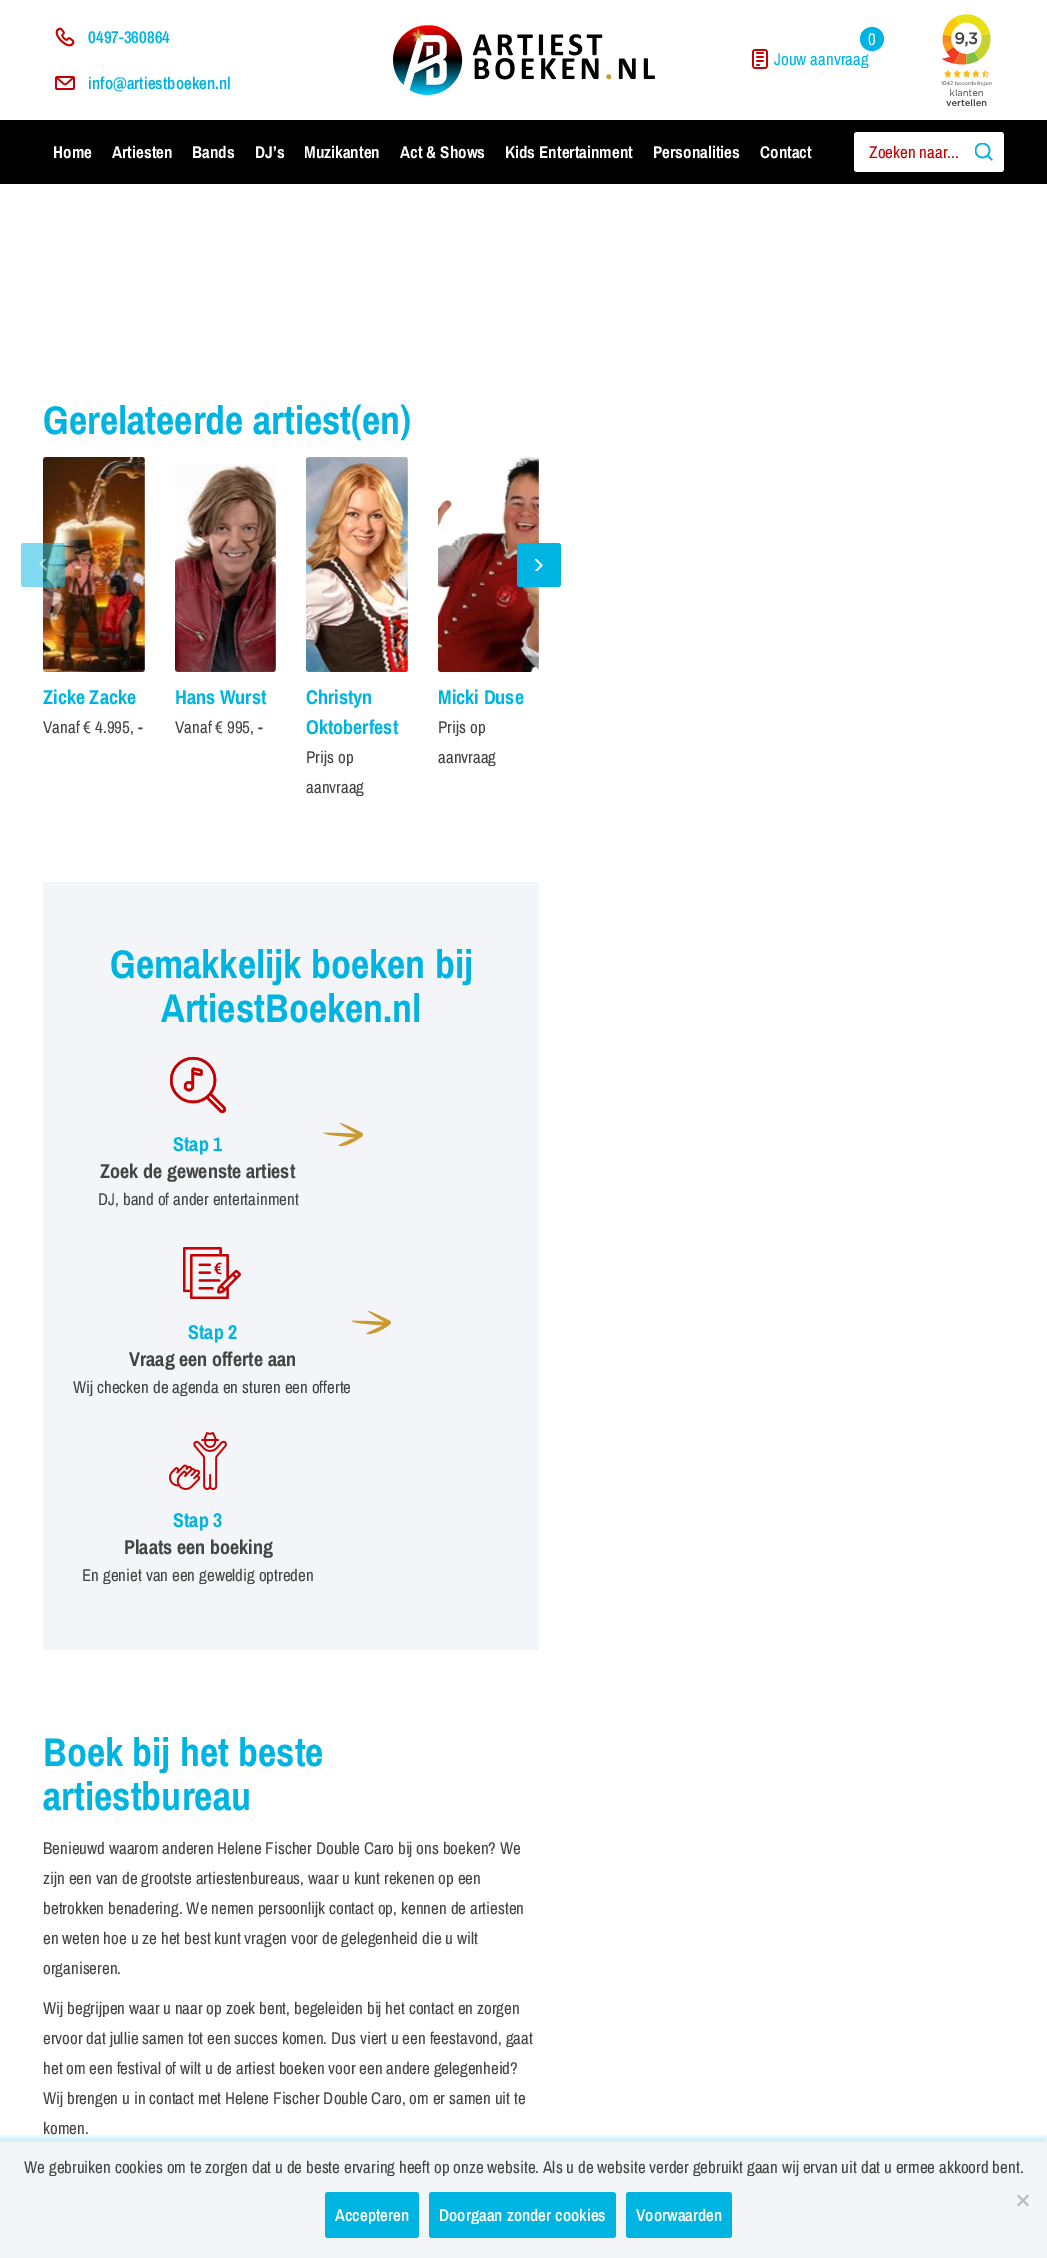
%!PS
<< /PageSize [1047 2258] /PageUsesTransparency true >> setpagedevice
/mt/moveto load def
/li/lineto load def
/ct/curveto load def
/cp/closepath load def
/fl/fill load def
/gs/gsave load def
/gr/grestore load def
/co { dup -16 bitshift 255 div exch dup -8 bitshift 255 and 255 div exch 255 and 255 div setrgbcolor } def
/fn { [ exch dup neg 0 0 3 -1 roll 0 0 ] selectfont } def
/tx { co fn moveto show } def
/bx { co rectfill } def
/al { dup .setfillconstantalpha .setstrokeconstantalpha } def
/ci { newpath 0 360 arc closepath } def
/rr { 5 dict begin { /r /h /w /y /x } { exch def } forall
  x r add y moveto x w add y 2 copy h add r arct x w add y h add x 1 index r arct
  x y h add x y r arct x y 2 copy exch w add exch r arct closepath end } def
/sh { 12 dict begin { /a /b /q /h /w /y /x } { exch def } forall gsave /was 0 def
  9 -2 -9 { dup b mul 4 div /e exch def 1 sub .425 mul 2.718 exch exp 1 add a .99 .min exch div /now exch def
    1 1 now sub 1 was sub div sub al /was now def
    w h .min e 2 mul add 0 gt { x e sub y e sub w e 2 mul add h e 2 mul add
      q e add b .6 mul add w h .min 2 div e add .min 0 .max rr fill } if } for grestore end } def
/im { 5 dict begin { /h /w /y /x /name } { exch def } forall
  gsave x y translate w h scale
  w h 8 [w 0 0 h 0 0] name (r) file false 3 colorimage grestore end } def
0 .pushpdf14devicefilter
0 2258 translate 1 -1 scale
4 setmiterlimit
0 0 1047 2258 16#FFFFFF bx
(media/1.raw) 55 27 20 20 im
(media/2.raw) 55 76 20 14 im
(media/3.raw) 393 25 262 70 im
16#00B4E1 co
872 39 12 ci fl
(media/4.raw) 752 49 16 20 im
(media/5.raw) 941 14 51 92 im
0 120 1047 64 16#000000 bx
16#FFFFFF co
854 132 150 40 3 rr fl
(media/6.raw) 975 143 18 18 im
(media/9.raw) 43 457 102 215 im
0.5 al
16#00B4E1 co
62 587 mt 24 587 li 22 587 21 585 21 584 ct 21 546 li 21 544 22 543 24 543 ct 62 543 li 64 543 65 544 65 546 ct 65 584 li 65 585 64 587 62 587 ct cp fl
1 al
(media/7.raw) 39 559 8 12 im
(media/12.raw) 438 457 101 215 im
517 543 44 44 3 rr fl
(media/8.raw) 535 559 8 12 im
(media/10.raw) 175 464 101 208 im
(media/11.raw) 306 457 102 215 im
43 882 496 768 16#F3F5F8 bx
(media/13.raw) 169 1056 58 58 im
(media/14.raw) 323 1123 40 24 im
(media/15.raw) 183 1247 58 52 im
(media/14.raw) 351 1311 40 24 im
(media/16.raw) 169 1432 58 58 im
0 2142 1047 116 16#F3F5F8 bx
gs
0 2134 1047 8 rectclip
16#00B4E1 co
0 2137 1047 116 0 2.5 .2 sh
gr
16#BABBBC co
1027.5 2194.5 mt 1029 2196 li 1018.5 2206.5 li 1017 2205 li cp fl
1017 2196 mt 1018.5 2194.5 li 1029 2205 li 1027.5 2206.5 li cp fl
16#00B4E1 co
325 2192 94 46 3 rr fl
429 2192 187 46 3 rr fl
626 2192 106 46 3 rr fl
(0497-360864) 88 43 /ArchivoNarrow-SemiBold 17 16#00B4E1 tx
(info@artiestboeken.nl) 88 89 /ArchivoNarrow-SemiBold 17 16#00B4E1 tx
(0) 868 45 /ArchivoNarrow-Regular 17 16#FFFFFF tx
(Jouw aanvraag) 774 65 /ArchivoNarrow-Regular 17 16#00B4E1 tx
(Home) 53 158 /ArchivoNarrow-Bold 17 16#FFFFFF tx
(Artiesten) 112 158 /ArchivoNarrow-Bold 17 16#FFFFFF tx
(Bands) 192 158 /ArchivoNarrow-Bold 17 16#FFFFFF tx
(DJ’s) 255 158 /ArchivoNarrow-Bold 17 16#FFFFFF tx
(Muzikanten) 304 158 /ArchivoNarrow-Bold 17 16#FFFFFF tx
(Act & Shows) 400 158 /ArchivoNarrow-Bold 17 16#FFFFFF tx
(Kids Entertainment) 505 158 /ArchivoNarrow-Bold 17 16#FFFFFF tx
(Personalities) 653 158 /ArchivoNarrow-Bold 17 16#FFFFFF tx
(Contact) 760 158 /ArchivoNarrow-Bold 17 16#FFFFFF tx
(Zoeken naar...) 869 158 /ArchivoNarrow-Regular 17 16#C50203 tx
(Gerelateerde artiest\(en\)) 43 434 /ArchivoNarrow-Bold 40 16#00B4E1 tx
(Zicke Zacke) 43 704 /ArchivoNarrow-Bold 20 16#00B4E1 tx
(Vanaf € 4.995, -) 43 733 /ArchivoNarrow-Regular 17 16#444444 tx
(Hans Wurst) 175 704 /ArchivoNarrow-Bold 20 16#00B4E1 tx
(Vanaf € 995, -) 175 733 /ArchivoNarrow-Regular 17 16#444444 tx
(Christyn) 306 704 /ArchivoNarrow-Bold 20 16#00B4E1 tx
(Oktoberfest) 306 734 /ArchivoNarrow-Bold 20 16#00B4E1 tx
(Prijs op) 306 763 /ArchivoNarrow-Regular 17 16#444444 tx
(aanvraag) 306 793 /ArchivoNarrow-Regular 17 16#444444 tx
(Micki Duse) 438 704 /ArchivoNarrow-Bold 20 16#00B4E1 tx
(Prijs op) 438 733 /ArchivoNarrow-Regular 17 16#444444 tx
(aanvraag) 438 763 /ArchivoNarrow-Regular 17 16#444444 tx
(Gemakkelijk boeken bij) 110 978 /ArchivoNarrow-Bold 40 16#00B4E1 tx
(ArtiestBoeken.nl) 161 1022 /ArchivoNarrow-Bold 40 16#00B4E1 tx
(Stap 1) 173 1151 /ArchivoNarrow-Bold 20 16#00B4E1 tx
(Zoek de gewenste artiest) 100 1178 /ArchivoNarrow-Bold 20 16#444444 tx
(DJ, band of ander entertainment) 98 1205 /ArchivoNarrow-Regular 17 16#444444 tx
(Stap 2) 188 1339 /ArchivoNarrow-Bold 20 16#00B4E1 tx
(Vraag een offerte aan) 129 1366 /ArchivoNarrow-Bold 20 16#444444 tx
(Wij checken de agenda en sturen een offerte) 73 1393 /ArchivoNarrow-Regular 17 16#444444 tx
(Stap 3) 173 1527 /ArchivoNarrow-Bold 20 16#00B4E1 tx
(Plaats een boeking) 124 1554 /ArchivoNarrow-Bold 20 16#444444 tx
(En geniet van een geweldig optreden) 82 1581 /ArchivoNarrow-Regular 17 16#444444 tx
(Boek bij het beste) 43 1766 /ArchivoNarrow-Bold 40 16#00B4E1 tx
(artiestbureau) 43 1810 /ArchivoNarrow-Bold 40 16#00B4E1 tx
(Benieuwd waarom anderen Helene Fischer Double Caro bij ons boeken? We) 43 1854 /ArchivoNarrow-Regular 17 16#444444 tx
(zijn een van de grootste artiestenbureaus, waar u kunt rekenen op een) 43 1884 /ArchivoNarrow-Regular 17 16#444444 tx
(betrokken benadering. We nemen persoonlijk contact op, kennen de artiesten) 43 1914 /ArchivoNarrow-Regular 17 16#444444 tx
(en weten hoe u ze het best kunt vragen voor de gelegenheid die u wilt) 43 1944 /ArchivoNarrow-Regular 17 16#444444 tx
(organiseren.) 43 1974 /ArchivoNarrow-Regular 17 16#444444 tx
(Wij begrijpen waar u naar op zoek bent, begeleiden bij het contact en zorgen) 43 2014 /ArchivoNarrow-Regular 17 16#444444 tx
(ervoor dat jullie samen tot een succes komen. Dus viert u een feestavond, gaat) 43 2044 /ArchivoNarrow-Regular 17 16#444444 tx
(het om een festival of wilt u de artiest boeken voor een andere gelegenheid?) 43 2074 /ArchivoNarrow-Regular 17 16#444444 tx
(Wij brengen u in contact met Helene Fischer Double Caro, om er samen uit te) 43 2104 /ArchivoNarrow-Regular 17 16#444444 tx
(komen.) 43 2134 /ArchivoNarrow-Regular 17 16#444444 tx
(We gebruiken cookies om te zorgen dat u de beste ervaring heeft op onze website. Als u de website verder gebruikt gaan wij ervan uit dat u ermee akkoord bent.) 24 2173 /ArchivoNarrow-Regular 17 16#444444 tx
(Accepteren) 335 2221 /ArchivoNarrow-SemiBold 17 16#FFFFFF tx
(Doorgaan zonder cookies) 439 2221 /ArchivoNarrow-SemiBold 17 16#FFFFFF tx
(Voorwaarden) 636 2221 /ArchivoNarrow-SemiBold 17 16#FFFFFF tx
.poppdf14devicefilter showpage
